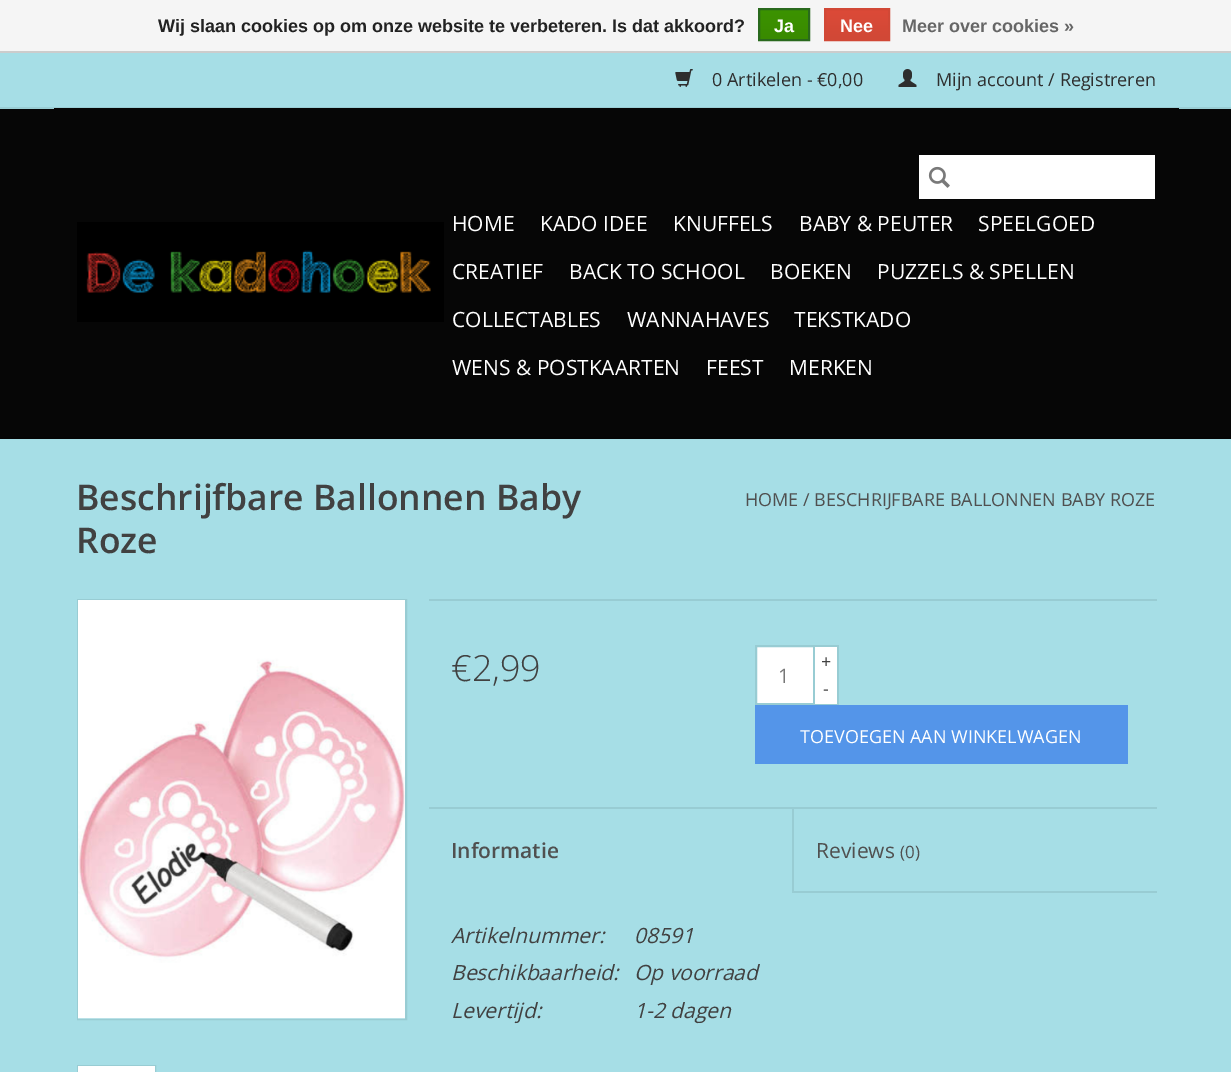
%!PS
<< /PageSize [1231 1072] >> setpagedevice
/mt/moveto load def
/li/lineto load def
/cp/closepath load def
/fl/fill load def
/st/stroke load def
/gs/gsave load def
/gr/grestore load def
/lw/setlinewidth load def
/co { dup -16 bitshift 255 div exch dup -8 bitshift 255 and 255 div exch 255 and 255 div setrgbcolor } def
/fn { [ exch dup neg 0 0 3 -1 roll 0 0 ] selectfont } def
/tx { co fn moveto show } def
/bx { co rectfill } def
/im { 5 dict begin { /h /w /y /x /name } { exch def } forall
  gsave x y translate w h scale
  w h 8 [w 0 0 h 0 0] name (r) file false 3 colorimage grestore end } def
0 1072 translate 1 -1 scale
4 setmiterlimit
0 0 1231 1072 16#A6DEE6 bx
0 0 1231 51 16#F5F5F5 bx
0 51 1231 2 16#CCCCCC bx
gs 760 10 mt 808 10 li 808 39 li 760 39 li cp clip newpath
<< /ShadingType 2 /ColorSpace /DeviceRGB /Coords [784 9 784 39] /Extend [true true] /Function << /FunctionType 2 /Domain [0 1] /C0 [.235 .576 0] /C1 [.224 .541 0] /N 1 >> >> shfill gr
16#29691D co
2 lw
759 9 50 31 rectstroke
gs 826 10 mt 888 10 li 888 39 li 826 39 li cp clip newpath
<< /ShadingType 2 /ColorSpace /DeviceRGB /Coords [857 9 857 39] /Extend [true true] /Function << /FunctionType 2 /Domain [0 1] /C0 [.863 .29 .22] /C1 [.82 .282 .212] /N 1 >> >> shfill gr
16#D14836 co
825 9 64 31 rectstroke
0 109 1231 328 16#060606 bx
0 437 1231 2 16#050505 bx
0 107 1231 2 16#9ACED5 bx
(media/1.raw) 675 69 18 18 im
(media/2.raw) 898 69 19 18 im
54 108 1125 1 16#060606 bx
(media/3.raw) 77 222 367 100 im
919 155 236 44 16#FFFFFF bx
(media/4.raw) 928 166 22 22 im
16#98CCD3 co
78 600 328 419 rectstroke
78 1018 327 1 16#A1D7DF bx
(media/5.raw) 78 600 327 419 im
16#98CCD3 co
78 1066 77 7 rectstroke
78 1066 77 6 16#FFFFFF bx
429 599 728 2 16#98CCD3 bx
16#FFFFFF co
756 646 mt 814 646 li 814 704 li 756 704 li cp gs fl gr
16#98CCD3 co
st
815 647 22 57 16#FFFFFF bx
815 645 24 2 16#98CCD3 bx
837 645 2 60 16#98CCD3 bx
815 704 24 1 16#98CCD3 bx
755 705 373 59 16#5495E9 bx
429 807 728 2 16#98CCD3 bx
792 891 365 2 16#98CCD3 bx
792 809 2 84 16#98CCD3 bx
(Wij slaan cookies op om onze website te verbeteren. Is dat akkoord?) 158 32 /LiberationSans-Bold 18 16#222222 tx
(Ja) 774 32 /LiberationSans-Bold 18 16#FFFFFF tx
(Nee) 840 32 /LiberationSans-Bold 18 16#FFFFFF tx
(Meer over cookies ») 902 32 /LiberationSans-Bold 18 16#666666 tx
(0 Artikelen - €0,00) 712 86 /OpenSans-Regular 18 16#2E2E2E tx
(Mijn account / Registreren) 936 86 /OpenSans-Regular 18 16#2E2E2E tx
(HOME) 452 231 /OpenSans-Regular 21 16#FFFFFF tx
(KADO IDEE) 540 231 /OpenSans-Regular 21 16#FFFFFF tx
(KNUFFELS) 673 231 /OpenSans-Regular 21 16#FFFFFF tx
(BABY & PEUTER) 799 231 /OpenSans-Regular 21 16#FFFFFF tx
(SPEELGOED) 978 231 /OpenSans-Regular 21 16#FFFFFF tx
(CREATIEF) 452 279 /OpenSans-Regular 21 16#FFFFFF tx
(BACK TO SCHOOL) 569 279 /OpenSans-Regular 21 16#FFFFFF tx
(BOEKEN) 770 279 /OpenSans-Regular 21 16#FFFFFF tx
(PUZZELS & SPELLEN) 877 279 /OpenSans-Regular 21 16#FFFFFF tx
(COLLECTABLES) 452 327 /OpenSans-Regular 21 16#FFFFFF tx
(WANNAHAVES) 627 327 /OpenSans-Regular 21 16#FFFFFF tx
(TEKSTKADO) 794 327 /OpenSans-Regular 21 16#FFFFFF tx
(WENS & POSTKAARTEN) 452 375 /OpenSans-Regular 21 16#FFFFFF tx
(FEEST) 706 375 /OpenSans-Regular 21 16#FFFFFF tx
(MERKEN) 789 375 /OpenSans-Regular 21 16#FFFFFF tx
(Beschrijfbare Ballonnen Baby) 76 510 /OpenSans-SemiBold 35.5 16#414141 tx
(Roze) 76 553 /OpenSans-SemiBold 35.5 16#414141 tx
(HOME / BESCHRIJFBARE BALLONNEN BABY ROZE) 745 506 /OpenSans-Regular 18 16#505050 tx
(€2,99) 451 681 /OpenSans-Light 36 16#414141 tx
(1) 778 683 /OpenSans-Regular 20 16#777777 tx
(+) 821 668 /OpenSans-Regular 18 16#414141 tx
(-) 823 695 /OpenSans-Regular 18 16#414141 tx
(TOEVOEGEN AAN WINKELWAGEN) 800 743 /OpenSans-Regular 18 16#FFFFFF tx
(Informatie) 451 858 /OpenSans-SemiBold 21 16#505050 tx
(Reviews) 816 858 /OpenSans-Regular 21 16#505050 tx
(\(0\)) 900 858 /OpenSans-Regular 17 16#505050 tx
(Artikelnummer:) 451 943 /OpenSans-Italic 21 16#414141 tx
(08591) 634 943 /OpenSans-Italic 21 16#414141 tx
(Beschikbaarheid:) 451 980 /OpenSans-Italic 21 16#414141 tx
(Op voorraad) 634 980 /OpenSans-Italic 21 16#414141 tx
(Levertijd:) 451 1018 /OpenSans-Italic 21 16#414141 tx
(1-2 dagen) 634 1018 /OpenSans-Italic 21 16#414141 tx
showpage
